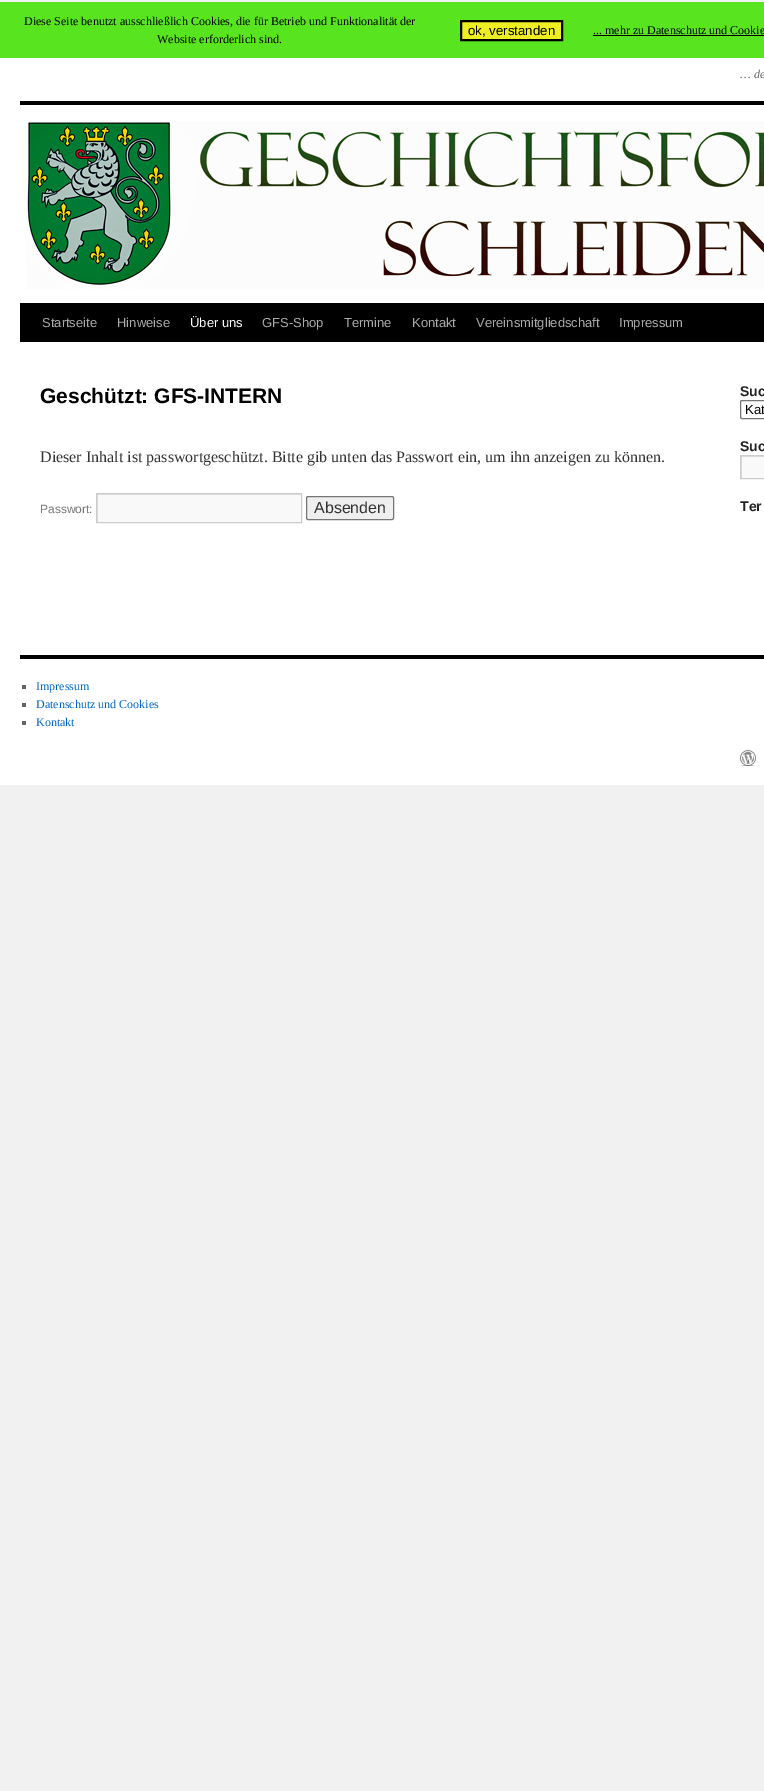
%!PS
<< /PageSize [764 1791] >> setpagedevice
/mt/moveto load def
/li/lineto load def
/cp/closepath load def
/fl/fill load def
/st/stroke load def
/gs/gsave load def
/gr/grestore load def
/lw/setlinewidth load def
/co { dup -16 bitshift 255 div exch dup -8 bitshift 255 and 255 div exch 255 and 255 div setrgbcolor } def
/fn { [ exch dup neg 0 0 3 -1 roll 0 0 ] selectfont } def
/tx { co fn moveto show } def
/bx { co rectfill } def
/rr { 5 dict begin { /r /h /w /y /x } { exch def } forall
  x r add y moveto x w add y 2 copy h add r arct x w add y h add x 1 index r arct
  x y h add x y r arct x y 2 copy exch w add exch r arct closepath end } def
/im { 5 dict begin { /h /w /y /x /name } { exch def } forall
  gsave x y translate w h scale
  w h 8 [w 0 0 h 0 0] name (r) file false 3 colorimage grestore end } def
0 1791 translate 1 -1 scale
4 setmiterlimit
0 0 764 1791 16#F1F1F1 bx
0 2 764 56 16#58E520 bx
16#EEEE22 co
461 21 mt 562 21 li 562 40 li 461 40 li cp gs fl gr
16#000000 co
2 lw
st
593 35 171 1 16#000000 bx
0 58 764 727 16#FFFFFF bx
20 101 744 4 16#000000 bx
20 303 744 39 16#000000 bx
(media/1.raw) 26 121 738 168 im
98 495 203 27 16#F9F9F9 bx
gs
97 494 204 28 rectclip
16#E0E0E0 co
-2 395 mt 400 395 li 400 621 li -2 621 li cp 98 495 mt 302 495 li 302 523 li 98 523 li cp eofill
gr
16#CCCCCC co
1 lw
96.5 493.5 205 29 rectstroke
16#EFEFEF co
306.5 496.5 87 23 1.5 rr gs fl gr
16#767676 co
st
740.5 400.5 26 18 1.5 rr st
742 457 22 21 16#F9F9F9 bx
gs
741 456 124 22 rectclip
16#E0E0E0 co
642 357 mt 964 357 li 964 577 li 642 577 li cp 742 457 mt 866 457 li 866 479 li 742 479 li cp eofill
gr
16#CCCCCC co
740.5 455.5 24 23 rectstroke
20 655 744 4 16#000000 bx
22 685 4 4 16#666666 bx
22 703 4 4 16#666666 bx
22 721 4 4 16#666666 bx
(media/2.raw) 740 750 16 16 im
(Diese Seite benutzt ausschließlich Cookies, die für Betrieb und Funktionalität der) 24 25 /LiberationSerif-Regular 12 16#000000 tx
(Website erforderlich sind.) 157 43 /LiberationSerif-Regular 12 16#000000 tx
(ok, verstanden) 468 35 /LiberationSans-Regular 13.25 16#000000 tx
(... mehr zu Datenschutz und Cookie) 593 34 /LiberationSerif-Regular 12 16#000000 tx
(… de) 740 78 /LiberationSerif-Italic 12 16#666666 tx
(Startseite) 42 327 /LiberationSans-Regular 13 16#AAAAAA tx
(Hinweise) 117 327 /LiberationSans-Regular 13 16#AAAAAA tx
(Über uns) 190 327 /LiberationSans-Regular 13 16#FFFFFF tx
(GFS-Shop) 262 327 /LiberationSans-Regular 13 16#AAAAAA tx
(Termine) 344 327 /LiberationSans-Regular 13 16#AAAAAA tx
(Kontakt) 412 327 /LiberationSans-Regular 13 16#AAAAAA tx
(Vereinsmitgliedschaft) 476 327 /LiberationSans-Regular 13 16#AAAAAA tx
(Impressum) 619 327 /LiberationSans-Regular 13 16#AAAAAA tx
(Geschützt: GFS-INTERN) 40 403 /LiberationSans-Bold 21 16#000000 tx
(Dieser Inhalt ist passwortgeschützt. Bitte gib unten das Passwort ein, um ihn anzeigen zu können.) 40 462 /LiberationSerif-Regular 16 16#333333 tx
(Passwort:) 40 513 /LiberationSans-Regular 12 16#777777 tx
(Absenden) 314 513 /LiberationSans-Regular 16 16#333333 tx
(Suc) 740 396 /LiberationSans-Bold 14 16#222222 tx
(Kat) 745 414 /LiberationSans-Regular 13.25 16#000000 tx
(Suc) 740 451 /LiberationSans-Bold 14 16#222222 tx
(Ter) 740 511 /LiberationSans-Bold 14 16#222222 tx
(Impressum) 36 690 /LiberationSerif-Regular 12 16#0066CC tx
(Datenschutz und Cookies) 36 708 /LiberationSerif-Regular 12 16#0066CC tx
(Kontakt) 36 726 /LiberationSerif-Regular 12 16#0066CC tx
showpage
